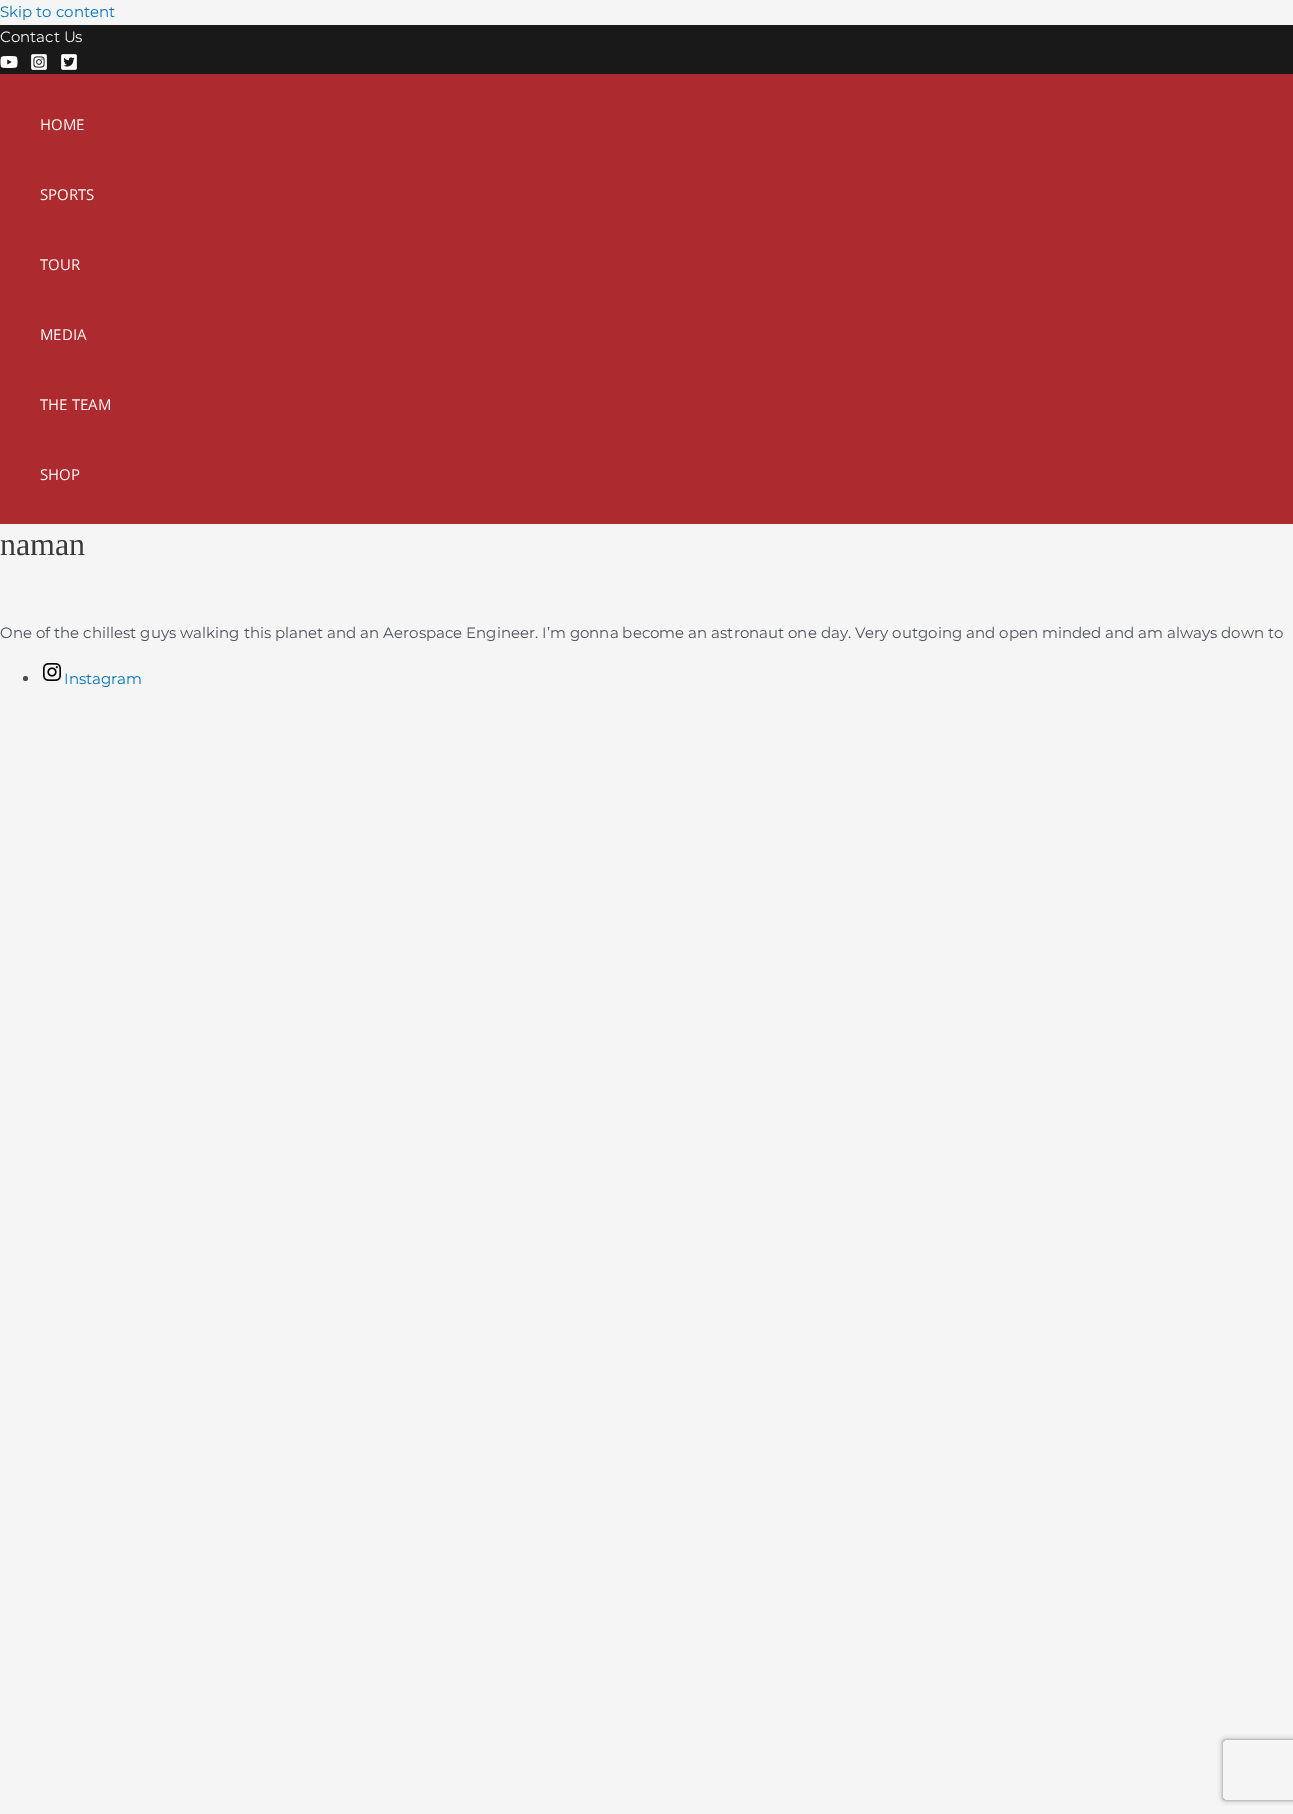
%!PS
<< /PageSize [1293 1814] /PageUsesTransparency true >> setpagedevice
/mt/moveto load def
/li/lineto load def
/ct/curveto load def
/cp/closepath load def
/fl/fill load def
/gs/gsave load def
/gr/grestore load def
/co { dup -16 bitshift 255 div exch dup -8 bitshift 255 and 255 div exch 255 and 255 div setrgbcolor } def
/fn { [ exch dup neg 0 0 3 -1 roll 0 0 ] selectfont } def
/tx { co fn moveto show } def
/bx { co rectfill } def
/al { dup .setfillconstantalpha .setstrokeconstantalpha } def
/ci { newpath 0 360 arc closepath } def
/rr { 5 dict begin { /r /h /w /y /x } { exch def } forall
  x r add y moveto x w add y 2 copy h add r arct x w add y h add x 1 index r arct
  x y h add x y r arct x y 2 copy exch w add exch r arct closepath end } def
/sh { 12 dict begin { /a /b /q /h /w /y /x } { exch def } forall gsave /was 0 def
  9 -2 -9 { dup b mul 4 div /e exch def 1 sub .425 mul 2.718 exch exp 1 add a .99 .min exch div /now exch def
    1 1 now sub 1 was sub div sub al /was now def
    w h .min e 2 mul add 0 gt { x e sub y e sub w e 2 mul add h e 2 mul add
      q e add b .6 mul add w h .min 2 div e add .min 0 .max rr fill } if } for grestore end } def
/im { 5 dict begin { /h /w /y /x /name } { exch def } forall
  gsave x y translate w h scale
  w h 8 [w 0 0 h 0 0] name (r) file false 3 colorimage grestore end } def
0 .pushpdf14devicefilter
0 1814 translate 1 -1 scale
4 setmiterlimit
0 0 1293 1814 16#F5F5F5 bx
0 25 1293 49 16#191919 bx
(media/1.raw) 0 56 18 12 im
(media/2.raw) 31 54 16 16 im
(media/3.raw) 61 54 16 16 im
0 74 1293 450 16#AD2A2E bx
16#4B4F58 co
25.5 678.5 2.5 ci fl
(media/4.raw) 43 663 18 18 im
gs
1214 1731 mt 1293 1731 li 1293 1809 li 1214 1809 li cp 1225 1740 mt 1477 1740 li 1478 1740 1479 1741 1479 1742 ct 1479 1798 li 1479 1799 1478 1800 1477 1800 ct 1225 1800 li 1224 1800 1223 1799 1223 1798 ct 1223 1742 li 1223 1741 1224 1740 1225 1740 ct cp eoclip newpath
16#808080 co
1223 1740 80 60 2 2.5 1 sh
gr
(Skip to content) 0 17 /Montserrat-Thin 15 16#0170B9 tx
(Contact Us) 0 42 /Montserrat-Thin 15 16#FFFFFF tx
(HOME) 40 130 /OpenSans-Regular 15 16#FFFFFF tx
(SPORTS) 40 200 /OpenSans-Regular 15 16#FFFFFF tx
(TOUR) 40 270 /OpenSans-Regular 15 16#FFFFFF tx
(MEDIA) 40 340 /OpenSans-Regular 15 16#FFFFFF tx
(THE TEAM) 40 410 /OpenSans-Regular 15 16#FFFFFF tx
(SHOP) 40 480 /OpenSans-Regular 15 16#FFFFFF tx
(naman) 0 555 /LiberationSerif-Regular 32 16#3A3A3A tx
(One of the chillest guys walking this planet and an Aerospace Engineer. I’m gonna become an astronaut one day. Very outgoing and open minded and am always down to) 0 638 /Montserrat-Thin 15 16#4B4F58 tx
(Instagram) 64 684 /Montserrat-Thin 15 16#0170B9 tx
.poppdf14devicefilter showpage
